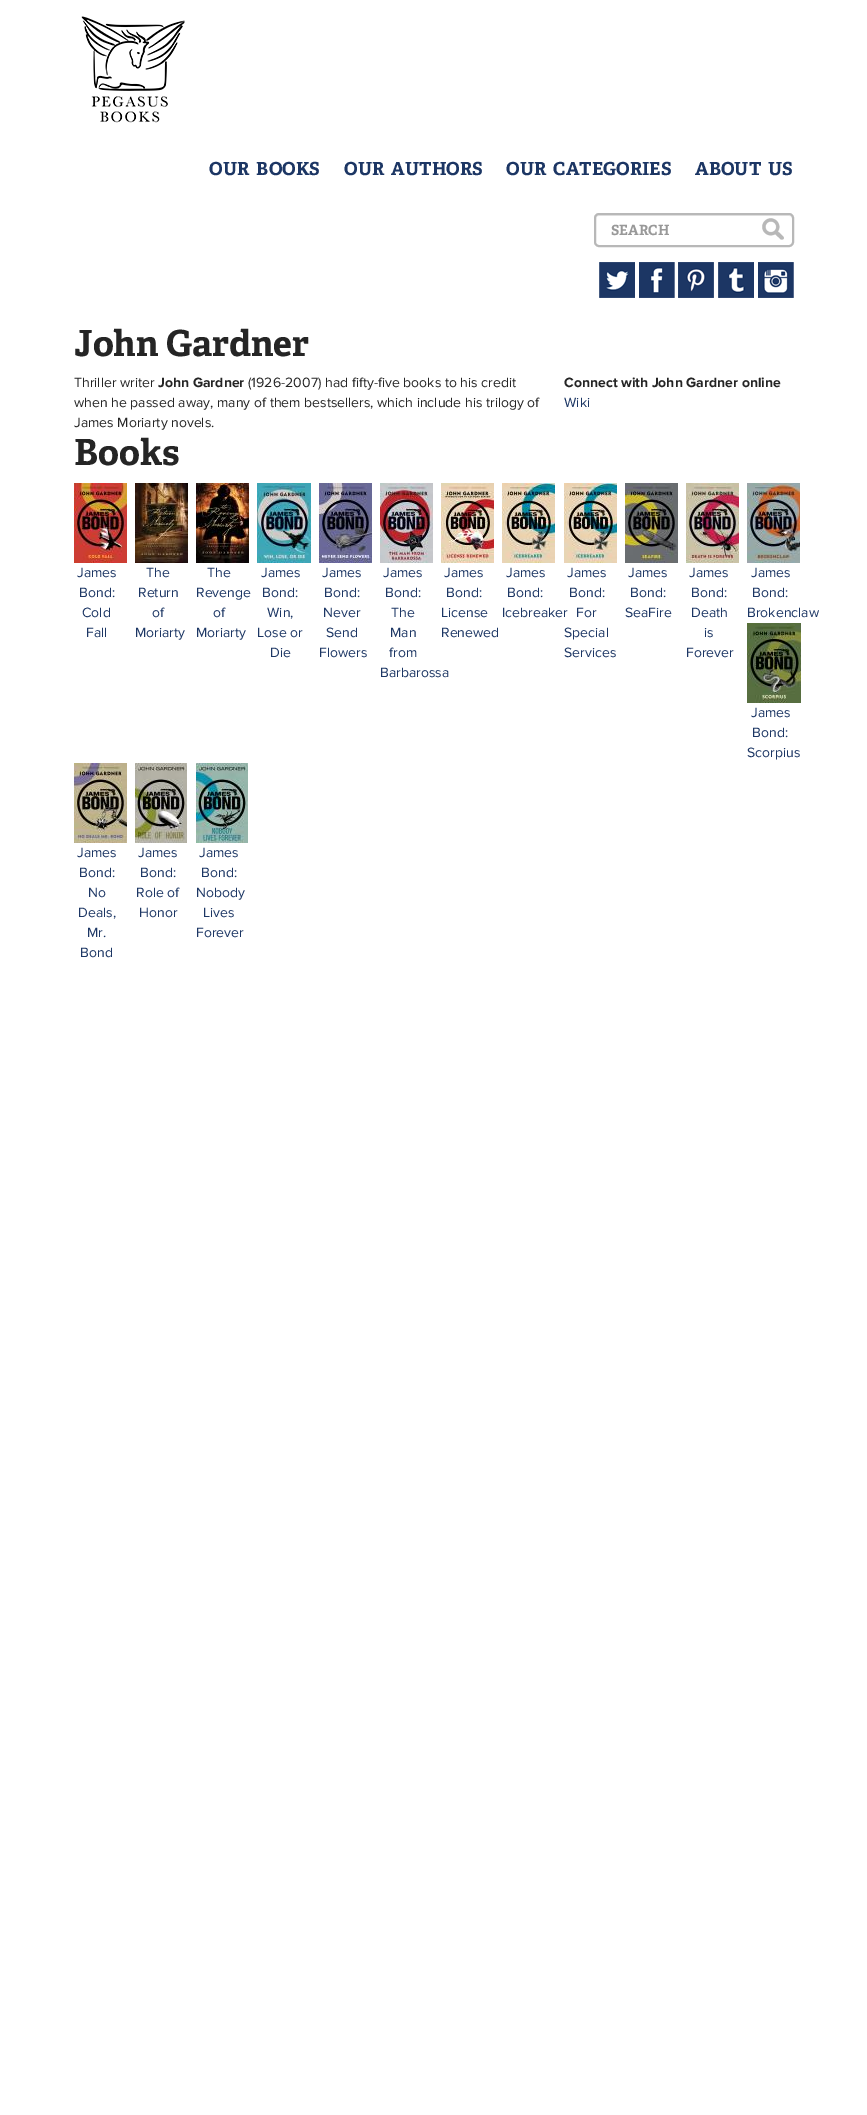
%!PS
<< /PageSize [867 2115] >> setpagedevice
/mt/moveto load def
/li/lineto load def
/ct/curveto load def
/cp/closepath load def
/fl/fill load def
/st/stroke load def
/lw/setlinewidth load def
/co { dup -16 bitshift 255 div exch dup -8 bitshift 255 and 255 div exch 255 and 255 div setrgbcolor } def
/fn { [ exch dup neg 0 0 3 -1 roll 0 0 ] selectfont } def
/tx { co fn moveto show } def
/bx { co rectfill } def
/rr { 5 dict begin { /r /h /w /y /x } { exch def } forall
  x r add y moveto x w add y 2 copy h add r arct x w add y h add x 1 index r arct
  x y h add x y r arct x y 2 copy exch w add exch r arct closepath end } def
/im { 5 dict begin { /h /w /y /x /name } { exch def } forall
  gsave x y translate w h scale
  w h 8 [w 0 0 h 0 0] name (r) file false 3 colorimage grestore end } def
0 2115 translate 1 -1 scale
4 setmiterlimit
0 0 867 2115 16#FFFFFF bx
(media/1.raw) 81 16 104 107 im
16#ECECEC co
599 216 mt 789 216 li 791 216 792 217 792 219 ct 792 217 791 215 789 215 ct 599 215 li 597 215 596 217 596 219 ct 596 217 597 216 599 216 ct cp fl
16#B8B8B8 co
2 lw
595 214 198 32 4 rr st
(media/2.raw) 762 218 22 22 im
(media/3.raw) 599 262 36 36 im
(media/4.raw) 639 262 36 36 im
(media/5.raw) 678 262 36 36 im
(media/6.raw) 718 262 36 36 im
(media/7.raw) 758 262 36 36 im
(media/8.raw) 74 483 53 80 im
(media/9.raw) 135 483 53 80 im
(media/10.raw) 196 483 53 80 im
(media/11.raw) 257 483 54 80 im
(media/12.raw) 319 483 53 80 im
(media/13.raw) 380 483 53 80 im
(media/14.raw) 441 483 53 80 im
(media/15.raw) 502 483 53 80 im
(media/15.raw) 564 483 53 80 im
(media/16.raw) 625 483 53 80 im
(media/17.raw) 686 483 53 80 im
(media/18.raw) 747 483 53 80 im
(media/19.raw) 747 623 54 80 im
(media/20.raw) 74 763 53 80 im
(media/21.raw) 135 763 52 80 im
(media/22.raw) 196 763 52 80 im
(OUR  BOOKS) 209 175 /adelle-Bold 18 16#1C3664 tx
(OUR  AUTHORS) 344 175 /adelle-Bold 18 16#1C3664 tx
(OUR  CATEGORIES) 506 175 /adelle-Bold 18 16#1C3664 tx
(ABOUT  US) 695 175 /adelle-Bold 18 16#1C3664 tx
(SEARCH) 611 235 /adelle-Bold 14 16#999999 tx
(John Gardner) 74 356 /adelle-Bold 36 16#252525 tx
(Thriller writer) 74 387 /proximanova-Regular 14 16#252525 tx
(John Gardner) 158 387 /proximanova-Bold 14 16#252525 tx
(\(1926-2007\) had fifty-five books to his credit) 248 387 /proximanova-Regular 14 16#252525 tx
(when he passed away, many of them bestsellers, which include his trilogy of) 74 407 /proximanova-Regular 14 16#252525 tx
(James Moriarty novels.) 74 427 /proximanova-Regular 14 16#252525 tx
(Connect with John Gardner online) 564 387 /proximanova-Bold 14 16#252525 tx
(Wiki) 564 407 /proximanova-Regular 14 16#1C3664 tx
(Books) 74 465 /adelle-Bold 36 16#252525 tx
(James) 77 577 /proximanova-Regular 14 16#1C3664 tx
(Bond:) 79 597 /proximanova-Regular 14 16#1C3664 tx
(Cold) 82 617 /proximanova-Regular 14 16#1C3664 tx
(Fall) 86 637 /proximanova-Regular 14 16#1C3664 tx
(The) 146 577 /proximanova-Regular 14 16#1C3664 tx
(Return) 138 597 /proximanova-Regular 14 16#1C3664 tx
(of) 152 617 /proximanova-Regular 14 16#1C3664 tx
(Moriarty) 135 637 /proximanova-Regular 14 16#1C3664 tx
(The) 207 577 /proximanova-Regular 14 16#1C3664 tx
(Revenge) 196 597 /proximanova-Regular 14 16#1C3664 tx
(of) 213 617 /proximanova-Regular 14 16#1C3664 tx
(Moriarty) 196 637 /proximanova-Regular 14 16#1C3664 tx
(James) 261 577 /proximanova-Regular 14 16#1C3664 tx
(Bond:) 262 597 /proximanova-Regular 14 16#1C3664 tx
(Win,) 267 617 /proximanova-Regular 14 16#1C3664 tx
(Lose or) 257 637 /proximanova-Regular 14 16#1C3664 tx
(Die) 270 657 /proximanova-Regular 14 16#1C3664 tx
(James) 322 577 /proximanova-Regular 14 16#1C3664 tx
(Bond:) 324 597 /proximanova-Regular 14 16#1C3664 tx
(Never) 323 617 /proximanova-Regular 14 16#1C3664 tx
(Send) 326 637 /proximanova-Regular 14 16#1C3664 tx
(Flowers) 319 657 /proximanova-Regular 14 16#1C3664 tx
(James) 383 577 /proximanova-Regular 14 16#1C3664 tx
(Bond:) 385 597 /proximanova-Regular 14 16#1C3664 tx
(The) 391 617 /proximanova-Regular 14 16#1C3664 tx
(Man) 390 637 /proximanova-Regular 14 16#1C3664 tx
(from) 389 657 /proximanova-Regular 14 16#1C3664 tx
(Barbarossa) 380 677 /proximanova-Regular 14 16#1C3664 tx
(James) 444 577 /proximanova-Regular 14 16#1C3664 tx
(Bond:) 446 597 /proximanova-Regular 14 16#1C3664 tx
(License) 441 617 /proximanova-Regular 14 16#1C3664 tx
(Renewed) 441 637 /proximanova-Regular 14 16#1C3664 tx
(James) 506 577 /proximanova-Regular 14 16#1C3664 tx
(Bond:) 507 597 /proximanova-Regular 14 16#1C3664 tx
(Icebreaker) 502 617 /proximanova-Regular 14 16#1C3664 tx
(James) 567 577 /proximanova-Regular 14 16#1C3664 tx
(Bond:) 569 597 /proximanova-Regular 14 16#1C3664 tx
(For) 576 617 /proximanova-Regular 14 16#1C3664 tx
(Special) 564 637 /proximanova-Regular 14 16#1C3664 tx
(Services) 564 657 /proximanova-Regular 14 16#1C3664 tx
(James) 628 577 /proximanova-Regular 14 16#1C3664 tx
(Bond:) 630 597 /proximanova-Regular 14 16#1C3664 tx
(SeaFire) 625 617 /proximanova-Regular 14 16#1C3664 tx
(James) 689 577 /proximanova-Regular 14 16#1C3664 tx
(Bond:) 691 597 /proximanova-Regular 14 16#1C3664 tx
(Death) 691 617 /proximanova-Regular 14 16#1C3664 tx
(is) 704 637 /proximanova-Regular 14 16#1C3664 tx
(Forever) 686 657 /proximanova-Regular 14 16#1C3664 tx
(James) 751 577 /proximanova-Regular 14 16#1C3664 tx
(Bond:) 752 597 /proximanova-Regular 14 16#1C3664 tx
(Brokenclaw) 747 617 /proximanova-Regular 14 16#1C3664 tx
(James) 751 717 /proximanova-Regular 14 16#1C3664 tx
(Bond:) 752 737 /proximanova-Regular 14 16#1C3664 tx
(Scorpius) 747 757 /proximanova-Regular 14 16#1C3664 tx
(James) 77 857 /proximanova-Regular 14 16#1C3664 tx
(Bond:) 79 877 /proximanova-Regular 14 16#1C3664 tx
(No) 88 897 /proximanova-Regular 14 16#1C3664 tx
(Deals,) 78 917 /proximanova-Regular 14 16#1C3664 tx
(Mr.) 87 937 /proximanova-Regular 14 16#1C3664 tx
(Bond) 80 957 /proximanova-Regular 14 16#1C3664 tx
(James) 138 857 /proximanova-Regular 14 16#1C3664 tx
(Bond:) 140 877 /proximanova-Regular 14 16#1C3664 tx
(Role of) 136 897 /proximanova-Regular 14 16#1C3664 tx
(Honor) 139 917 /proximanova-Regular 14 16#1C3664 tx
(James) 199 857 /proximanova-Regular 14 16#1C3664 tx
(Bond:) 201 877 /proximanova-Regular 14 16#1C3664 tx
(Nobody) 196 897 /proximanova-Regular 14 16#1C3664 tx
(Lives) 203 917 /proximanova-Regular 14 16#1C3664 tx
(Forever) 196 937 /proximanova-Regular 14 16#1C3664 tx
showpage
